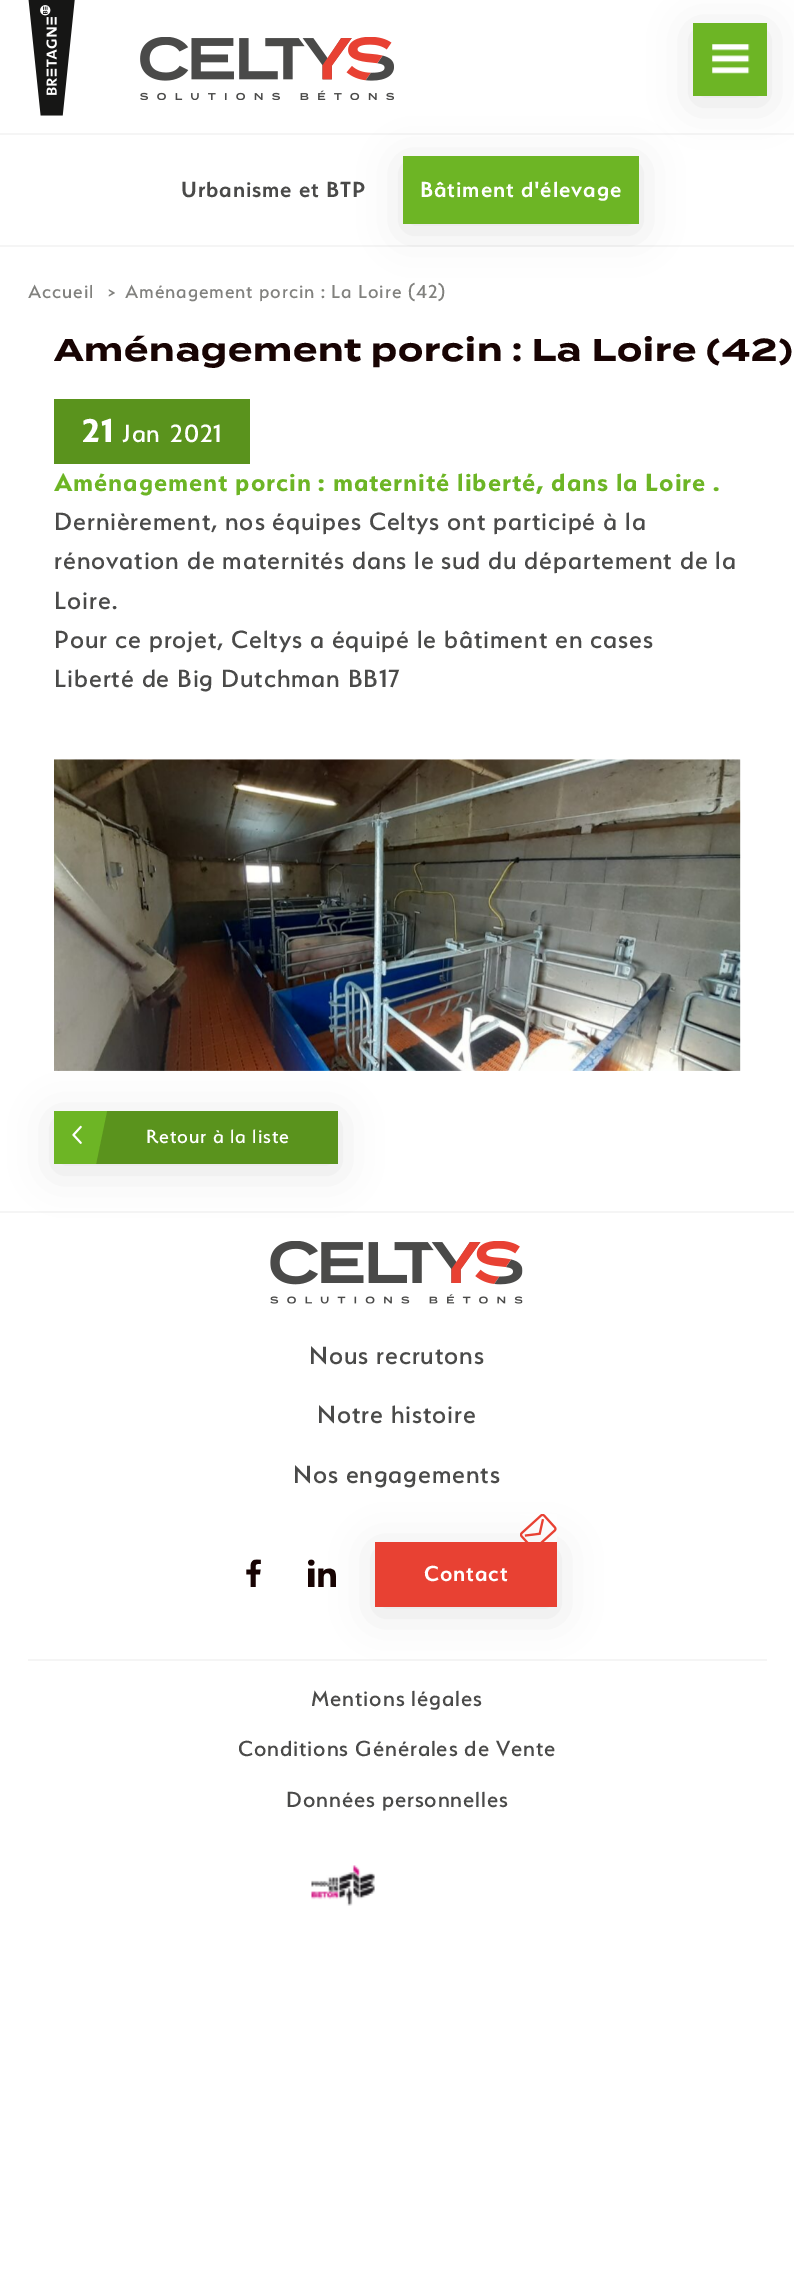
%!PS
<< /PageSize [794 2290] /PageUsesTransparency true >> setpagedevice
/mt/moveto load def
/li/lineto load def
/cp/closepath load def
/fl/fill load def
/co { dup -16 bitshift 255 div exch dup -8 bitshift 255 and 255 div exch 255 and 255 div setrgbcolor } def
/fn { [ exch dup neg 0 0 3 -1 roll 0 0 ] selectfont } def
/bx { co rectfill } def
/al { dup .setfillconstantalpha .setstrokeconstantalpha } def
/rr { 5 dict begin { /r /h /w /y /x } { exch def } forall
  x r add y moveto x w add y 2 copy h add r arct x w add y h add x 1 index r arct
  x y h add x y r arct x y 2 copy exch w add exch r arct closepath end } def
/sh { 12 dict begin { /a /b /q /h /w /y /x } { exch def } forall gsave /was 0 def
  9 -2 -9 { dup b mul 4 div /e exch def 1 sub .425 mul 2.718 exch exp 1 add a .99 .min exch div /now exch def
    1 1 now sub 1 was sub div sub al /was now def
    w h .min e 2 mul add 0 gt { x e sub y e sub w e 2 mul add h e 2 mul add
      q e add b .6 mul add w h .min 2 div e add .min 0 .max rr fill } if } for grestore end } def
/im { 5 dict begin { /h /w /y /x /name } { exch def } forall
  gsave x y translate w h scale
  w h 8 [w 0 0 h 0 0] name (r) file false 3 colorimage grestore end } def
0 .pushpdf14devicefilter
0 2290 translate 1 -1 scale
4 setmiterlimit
0 0 794 2290 16#FFFFFF bx
0 245 794 2 16#F5F5F5 bx
(media/1.raw) 28 0 47 116 im
(media/2.raw) 140 37 254 63 im
0 133 794 2 16#F5F5F5 bx
16#4A4A49 co
693 30 74 73 0 21 .16 sh
693 23 74 73 16#6DB525 bx
(media/3.raw) 712 44 38 30 im
16#4A4A49 co
403 163 236 68 0 21 .16 sh
403 156 236 68 16#6DB525 bx
54 399 196 65 16#5A931D bx
(media/4.raw) 54 759 687 312 im
0 1211 794 2 16#F5F5F5 bx
16#4A4A49 co
54 1118 284 53 0 21 .16 sh
96 1111 242 53 16#5A931D bx
16#6DB525 co
54 1111 mt 107 1111 li 96 1164 li 54 1164 li cp fl
(media/5.raw) 72 1125 10 19 im
(media/6.raw) 270 1241 253 63 im
(media/7.raw) 246 1559 15 28 im
(media/8.raw) 308 1559 28 28 im
28 1659 739 2 16#F5F5F5 bx
16#4A4A49 co
375 1549 182 65 0 21 .16 sh
375 1542 182 65 16#E84133 bx
(media/9.raw) 520 1514 37 28 im
(media/10.raw) 311 1865 64 41 im
/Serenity-SemiBold 24.5 fn
16#4A4A49 co
181 197 mt .88 0 (Urbanisme et BTP) ashow
16#FFFFFF co
420 197 mt .88 0 (Bâtiment d'élevage) ashow
/Serenity-Medium 21 fn
16#81817E co
28 298 mt .88 0 (Accueil) ashow
108 298 mt .88 0 (>) ashow
125 298 mt .88 0 (Aménagement porcin : La Loire \(42\)) ashow
/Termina-Bold 31.5 fn
16#180403 co
54 361 mt .88 0 (Aménagement porcin : La Loire \(42\)) ashow
/Serenity-Bold 37 fn
16#FFFFFF co
82 442 mt .88 0 (21) ashow
/Serenity-Medium 28 fn
122 442 mt .88 0 (Jan) ashow
170 442 mt .88 0 (2021) ashow
/Serenity-Bold 28 fn
16#6DB525 co
54 491 mt .88 0 (Aménagement porcin : maternité liberté, dans la Loire .) ashow
/Serenity-Medium 28 fn
16#4A4A49 co
54 530 mt .88 0 (Dernièrement, nos équipes Celtys ont participé à la) ashow
54 569 mt .88 0 (rénovation de maternités dans le sud du département de la) ashow
54 609 mt .88 0 (Loire.) ashow
54 648 mt .88 0 (Pour ce projet, Celtys a équipé le bâtiment en cases) ashow
54 687 mt .88 0 (Liberté de Big Dutchman BB17) ashow
/Serenity-Medium 21.5 fn
16#FFFFFF co
146 1143 mt .88 0 (Retour à la liste) ashow
/Serenity-Medium 28 fn
16#4A4A49 co
309 1364 mt .88 0 (Nous recrutons) ashow
317 1423 mt .88 0 (Notre histoire) ashow
293 1483 mt .88 0 (Nos engagements) ashow
/Serenity-SemiBold 24.5 fn
16#FFFFFF co
424 1581 mt .88 0 (Contact) ashow
/Serenity-Medium 24.5 fn
16#4A4A49 co
311 1706 mt .88 0 (Mentions légales) ashow
238 1756 mt .88 0 (Conditions Générales de Vente) ashow
286 1807 mt .88 0 (Données personnelles) ashow
.poppdf14devicefilter showpage
